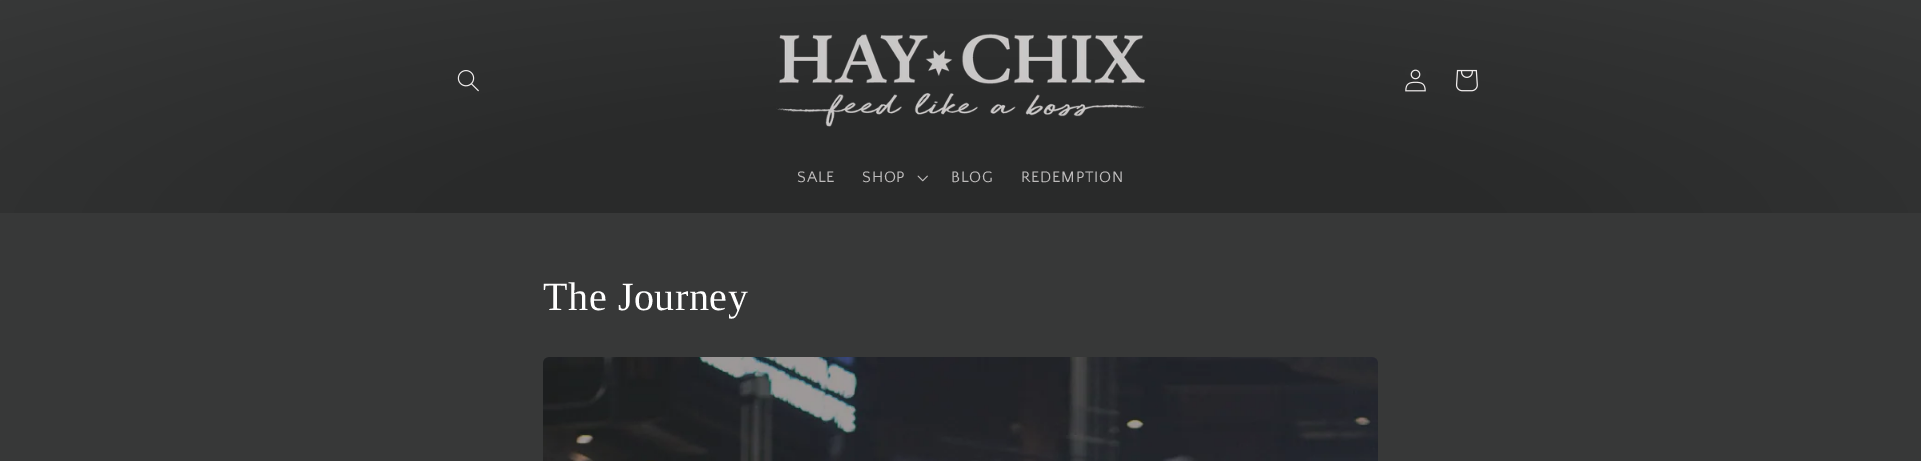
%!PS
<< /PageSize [1921 461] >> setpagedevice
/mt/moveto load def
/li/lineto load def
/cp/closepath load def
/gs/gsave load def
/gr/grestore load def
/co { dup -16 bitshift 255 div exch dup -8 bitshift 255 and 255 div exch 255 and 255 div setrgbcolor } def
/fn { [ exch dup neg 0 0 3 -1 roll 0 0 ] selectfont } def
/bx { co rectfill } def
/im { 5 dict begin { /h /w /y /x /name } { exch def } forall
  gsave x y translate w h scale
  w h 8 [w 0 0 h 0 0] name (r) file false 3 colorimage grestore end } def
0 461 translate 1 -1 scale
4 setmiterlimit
0 0 1921 461 16#373838 bx
gs 0 0 mt 1921 0 li 1921 213 li 0 213 li cp clip newpath 961 231 translate 1358 326 scale
<< /ShadingType 3 /ColorSpace /DeviceRGB /Coords [0 0 0 0 0 1] /Extend [true true] /Function << /FunctionType 3 /Domain [0 1] /Functions [<< /FunctionType 2 /Domain [0 1] /C0 [.161 .165 .165] /C1 [.161 .165 .165] /N 1 >> << /FunctionType 2 /Domain [0 1] /C0 [.161 .165 .165] /C1 [.216 .22 .22] /N 1 >>] /Bounds [.38] /Encode [0 1 0 1] >> >> shfill gr
(media/1.raw) 457 70 22 22 im
(media/2.raw) 776 33 370 94 im
(media/3.raw) 1405 69 21 23 im
(media/4.raw) 1455 69 23 23 im
(media/5.raw) 917 175 11 7 im
(media/6.raw) 543 357 835 104 im
/QuattrocentoSans-Regular 16 fn
16#BEBCBC co
797 182 mt .75 0 (SALE) ashow
862 182 mt .75 0 (SHOP) ashow
951 182 mt .75 0 (BLOG) ashow
1021 182 mt .75 0 (REDEMPTION) ashow
/LiberationSerif-Regular 40 fn
16#FFFFFF co
543 310 mt .6 0 (The Journey) ashow
showpage
